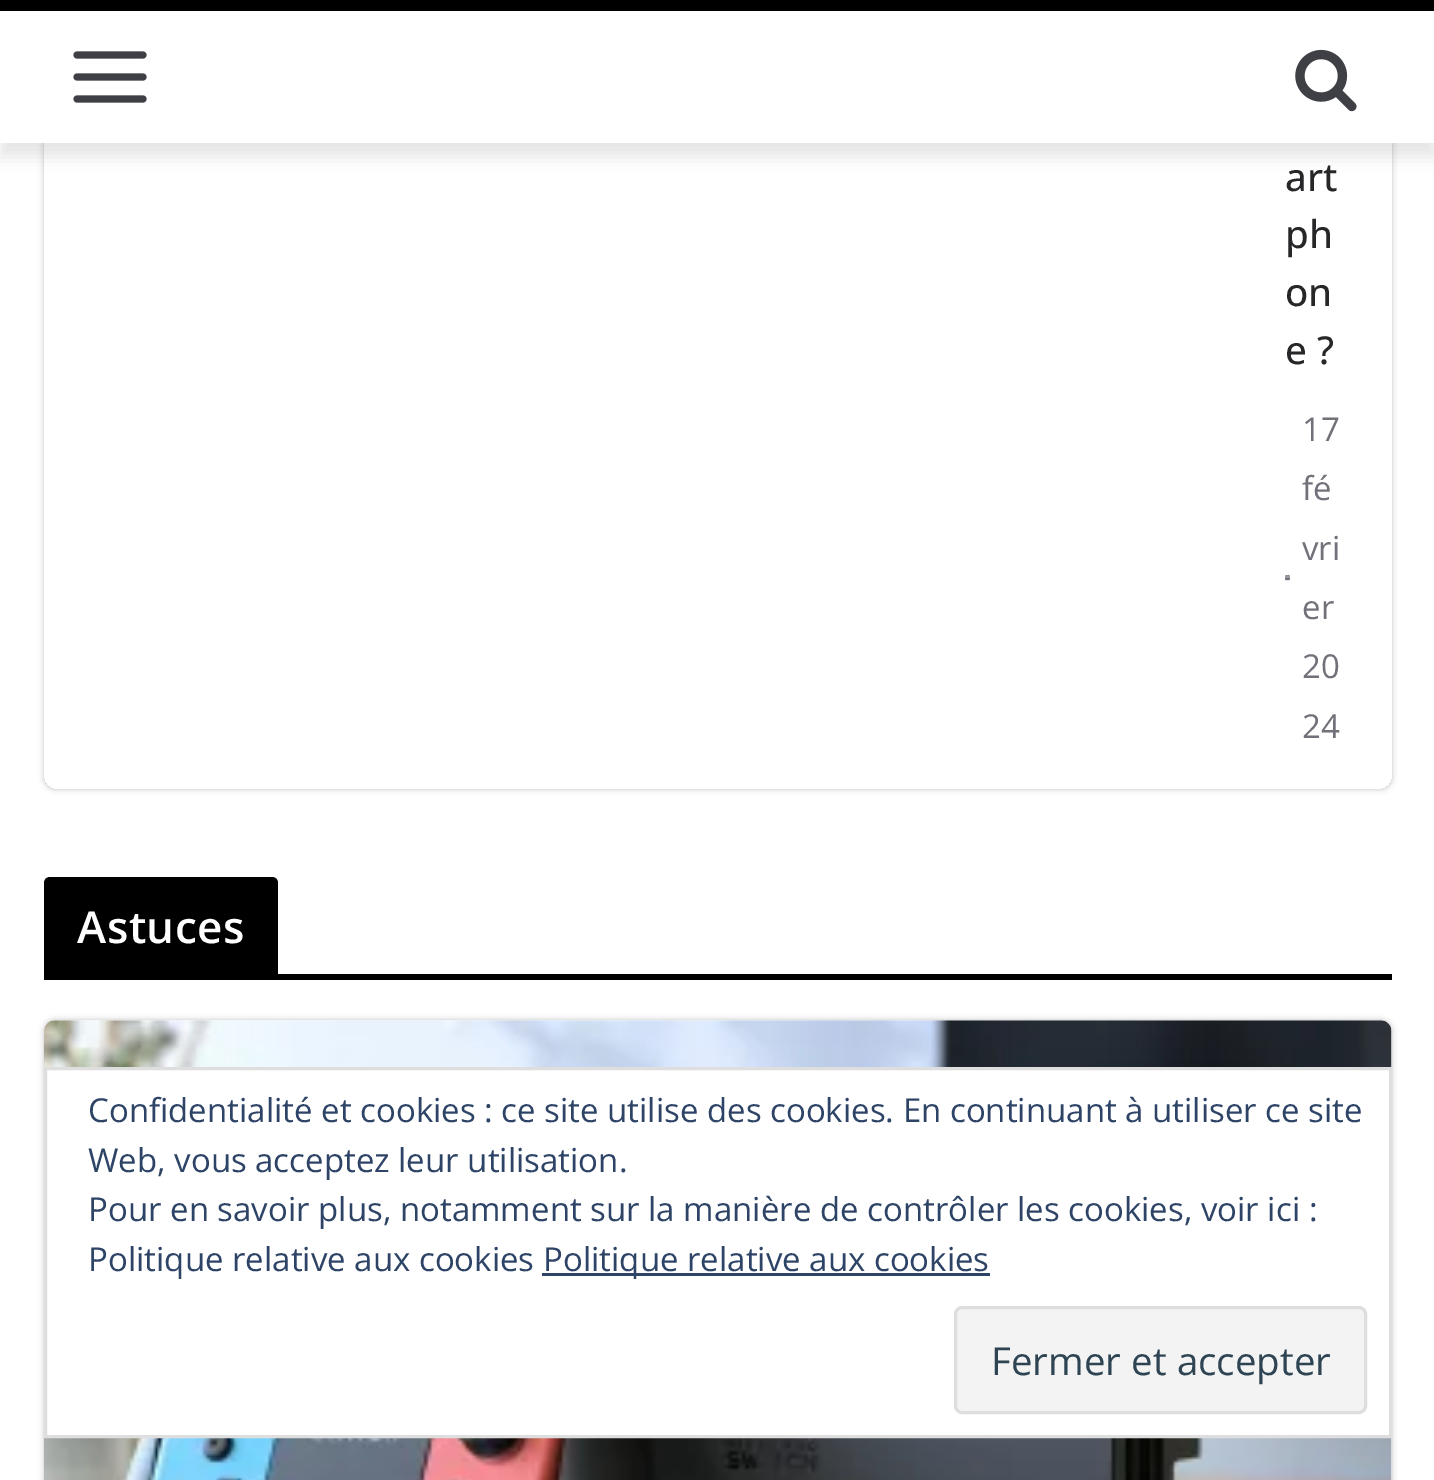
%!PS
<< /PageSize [1434 1480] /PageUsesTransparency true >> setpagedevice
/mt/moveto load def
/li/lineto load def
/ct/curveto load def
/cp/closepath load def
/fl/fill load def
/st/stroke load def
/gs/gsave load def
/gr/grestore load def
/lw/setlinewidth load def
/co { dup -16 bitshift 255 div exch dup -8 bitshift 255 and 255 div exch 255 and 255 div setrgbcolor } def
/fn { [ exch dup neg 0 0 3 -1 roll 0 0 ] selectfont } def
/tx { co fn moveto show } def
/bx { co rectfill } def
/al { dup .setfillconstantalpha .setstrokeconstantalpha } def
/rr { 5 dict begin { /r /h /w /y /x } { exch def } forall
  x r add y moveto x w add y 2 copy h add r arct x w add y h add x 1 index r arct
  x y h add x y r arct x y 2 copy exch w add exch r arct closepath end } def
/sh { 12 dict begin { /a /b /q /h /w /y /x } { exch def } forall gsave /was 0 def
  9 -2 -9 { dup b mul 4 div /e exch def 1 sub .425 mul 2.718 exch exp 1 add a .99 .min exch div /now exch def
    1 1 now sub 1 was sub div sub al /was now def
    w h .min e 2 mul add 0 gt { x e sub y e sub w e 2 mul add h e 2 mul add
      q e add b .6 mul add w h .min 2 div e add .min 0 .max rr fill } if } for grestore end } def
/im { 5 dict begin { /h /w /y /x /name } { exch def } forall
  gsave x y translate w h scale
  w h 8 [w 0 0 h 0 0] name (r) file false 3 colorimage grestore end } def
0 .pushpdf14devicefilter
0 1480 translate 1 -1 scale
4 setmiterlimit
0 0 1434 1480 16#FFFFFF bx
16#000000 co
0 14 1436 143 0 8 .1 sh
gs
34 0 mt 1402 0 li 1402 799 li 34 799 li cp 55 -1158 mt 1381 -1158 li 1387 -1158 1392 -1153 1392 -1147 ct 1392 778 li 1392 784 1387 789 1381 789 ct 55 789 li 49 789 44 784 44 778 ct 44 -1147 li 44 -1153 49 -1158 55 -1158 ct cp eoclip newpath
44 -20 1348 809 11 3 .24 sh
gr
0 11 1434 132 16#FFFFFF bx
0 0 1434 11 16#000000 bx
(media/1.raw) 73 51 74 52 im
(media/2.raw) 1295 49 62 63 im
(media/3.raw) 1285 574 5 7 im
44 974 1348 6 16#000000 bx
50 877 mt 272 877 li 275.5 877 278 879.5 278 883 ct 278 974 li 44 974 li 44 883 li 44 879.5 46.5 877 50 877 ct cp fl
44 1020 1348 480 11 3 .24 sh
(media/4.raw) 44 1020 1348 460 im
16#FFFFFF co
45.5 1068.5 mt 1390.5 1068.5 li 1390.5 1436.5 li 45.5 1436.5 li cp gs fl gr
16#DEDEDE co
3 lw
st
542 1273 448 3 16#2E4467 bx
16#F3F3F3 co
955.5 1307.5 410 105 6.5 rr gs fl gr
16#DEDEDE co
st
(art) 1285 191 /OpenSans-Medium 38.5 16#27272A tx
(ph) 1285 248 /OpenSans-Medium 38.5 16#27272A tx
(on) 1285 306 /OpenSans-Medium 38.5 16#27272A tx
(e ?) 1285 364 /OpenSans-Medium 38.5 16#27272A tx
(17) 1302 441 /OpenSans-Regular 33 16#71717A tx
(fé) 1302 500 /OpenSans-Regular 33 16#71717A tx
(vri) 1302 560 /OpenSans-Regular 33 16#71717A tx
(er) 1302 619 /OpenSans-Regular 33 16#71717A tx
(20) 1302 678 /OpenSans-Regular 33 16#71717A tx
(24) 1302 738 /OpenSans-Regular 33 16#71717A tx
/OpenSans-SemiBold 44 fn
16#FFFFFF co
77 943 mt .5 0 (Astuces) ashow
(Confidentialité et cookies : ce site utilise des cookies. En continuant à utiliser ce site) 88 1122 /OpenSans-Regular 33 16#2E4467 tx
(Web, vous acceptez leur utilisation.) 88 1172 /OpenSans-Regular 33 16#2E4467 tx
(Pour en savoir plus, notamment sur la manière de contrôler les cookies, voir ici :) 88 1221 /OpenSans-Regular 33 16#2E4467 tx
(Politique relative aux cookies) 88 1271 /OpenSans-Regular 33 16#2E4467 tx
(Politique relative aux cookies) 543 1271 /OpenSans-Regular 33 16#2E4467 tx
(Fermer et accepter) 991 1375 /OpenSans-Regular 38.5 16#2E4453 tx
.poppdf14devicefilter showpage
